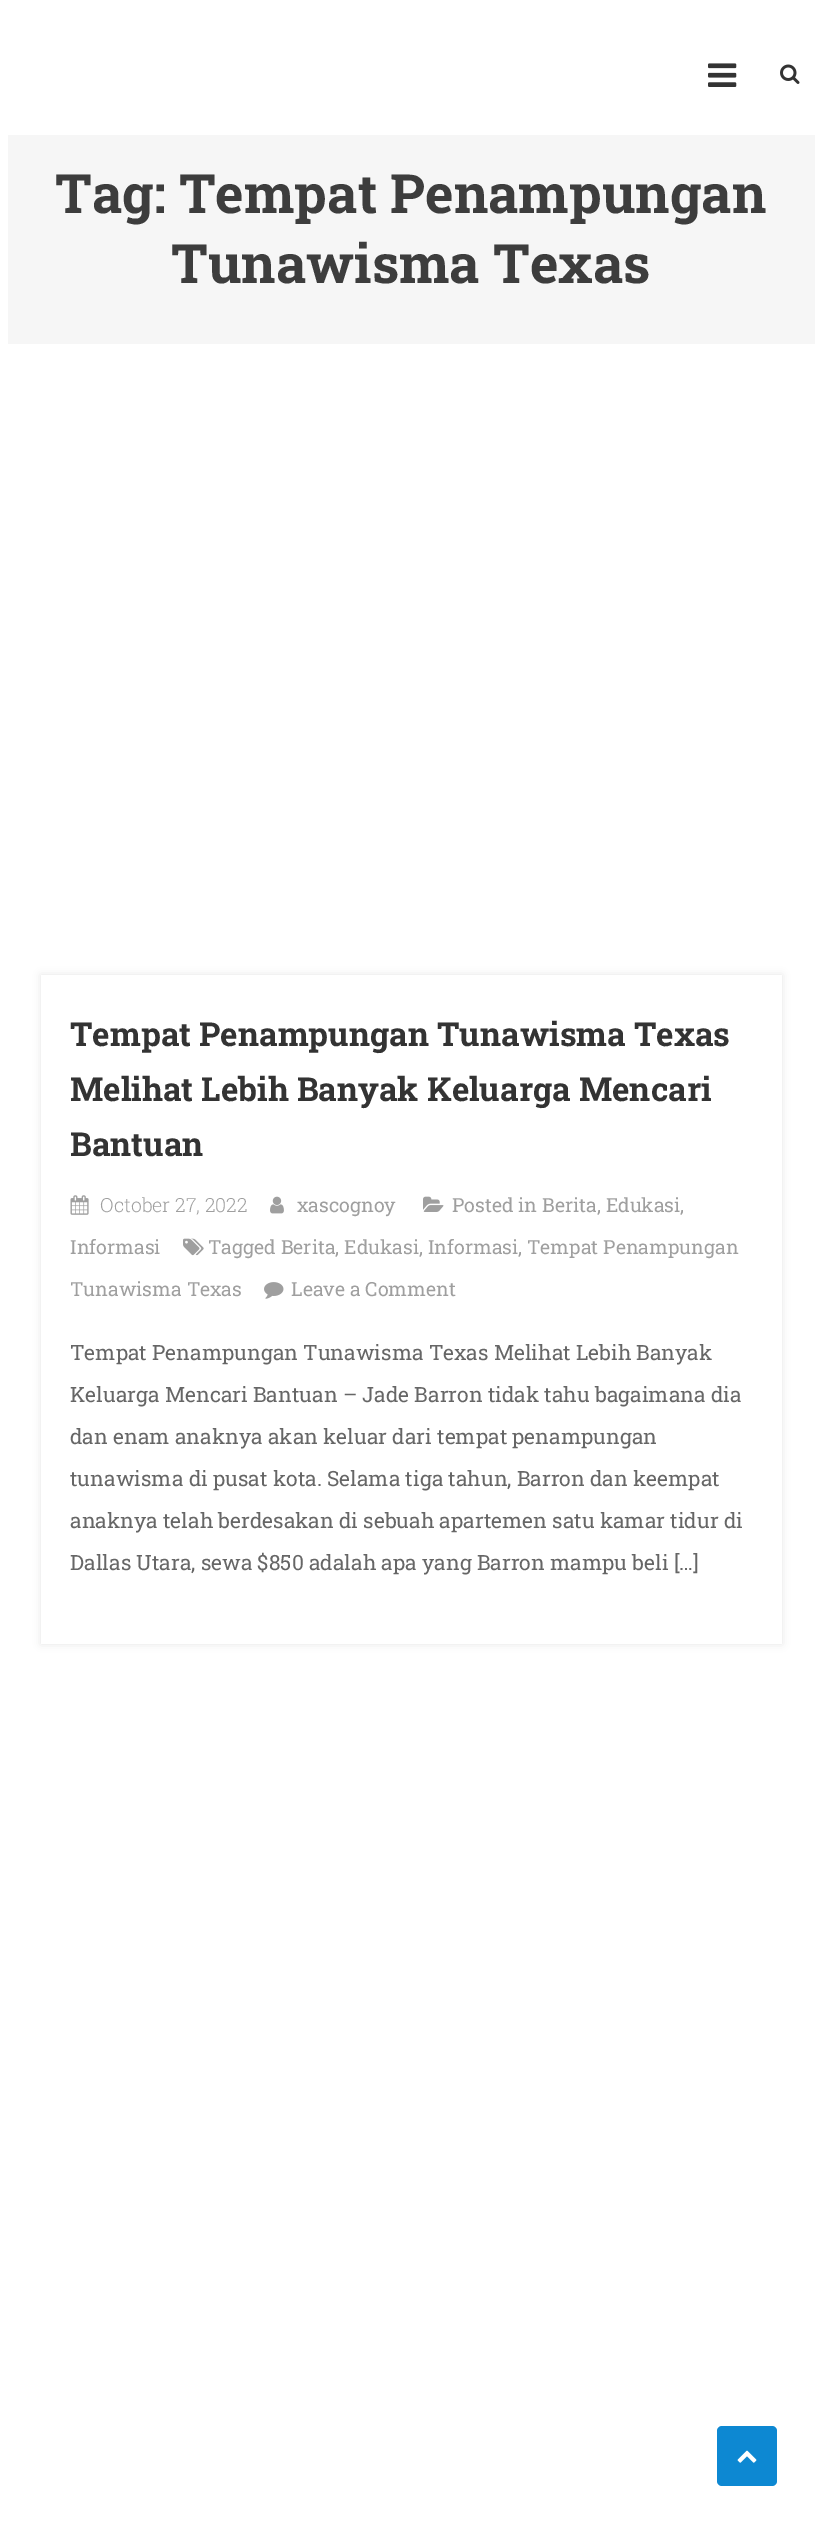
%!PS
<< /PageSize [822 2545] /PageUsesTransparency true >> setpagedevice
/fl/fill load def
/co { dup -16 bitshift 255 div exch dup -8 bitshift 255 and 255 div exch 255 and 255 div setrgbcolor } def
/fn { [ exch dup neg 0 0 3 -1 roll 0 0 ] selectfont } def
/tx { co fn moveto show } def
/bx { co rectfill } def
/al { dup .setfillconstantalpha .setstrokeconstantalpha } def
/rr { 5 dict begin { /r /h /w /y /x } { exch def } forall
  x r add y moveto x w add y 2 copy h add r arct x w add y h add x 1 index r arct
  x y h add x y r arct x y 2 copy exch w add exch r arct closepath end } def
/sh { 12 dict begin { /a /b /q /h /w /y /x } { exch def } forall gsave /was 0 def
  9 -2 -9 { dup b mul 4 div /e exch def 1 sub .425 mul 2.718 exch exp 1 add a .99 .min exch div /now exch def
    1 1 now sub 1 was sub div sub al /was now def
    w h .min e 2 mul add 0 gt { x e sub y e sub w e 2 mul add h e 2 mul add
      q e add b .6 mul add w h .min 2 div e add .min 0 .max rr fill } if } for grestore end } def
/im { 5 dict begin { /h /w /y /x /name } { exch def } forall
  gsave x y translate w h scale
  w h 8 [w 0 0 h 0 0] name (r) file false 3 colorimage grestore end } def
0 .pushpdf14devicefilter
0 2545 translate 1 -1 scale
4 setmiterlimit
0 0 822 2545 16#FFFFFF bx
(media/1.raw) 708 63 29 24 im
(media/2.raw) 780 64 20 20 im
8 135 807 209 16#F6F6F6 bx
16#000000 co
41 975 741 669 0 4 .1 sh
41 975 741 669 16#FFFFFF bx
(media/3.raw) 70 1195 19 20 im
(media/4.raw) 270 1196 14 18 im
(media/5.raw) 423 1196 21 16 im
(media/6.raw) 183 1238 21 18 im
(media/7.raw) 264 1282 20 17 im
16#0D88D2 co
717 2426 60 60 5 rr fl
(media/8.raw) 737 2450 20 13 im
(Tag: Tempat Penampungan) 55 213 /RobotoSlab-Bold 54 16#3D3D3D tx
(Tunawisma Texas) 171 283 /RobotoSlab-Bold 54 16#3D3D3D tx
(Tempat Penampungan Tunawisma Texas) 70 1046 /RobotoSlab-Bold 33 16#333333 tx
(Melihat Lebih Banyak Keluarga Mencari) 70 1101 /RobotoSlab-Bold 33 16#333333 tx
(Bantuan) 70 1156 /RobotoSlab-Bold 33 16#333333 tx
(October 27, 2022) 100 1212 /RobotoSlab-Light 19.5 16#9F9F9F tx
(xascognoy) 297 1212 /RobotoSlab-Regular 19.5 16#9F9F9F tx
(Posted in Berita, Edukasi,) 452 1212 /RobotoSlab-Regular 19.5 16#9F9F9F tx
(Informasi) 70 1254 /RobotoSlab-Regular 19.5 16#9F9F9F tx
(Tagged Berita, Edukasi, Informasi, Tempat Penampungan) 208 1254 /RobotoSlab-Regular 19.5 16#9F9F9F tx
(Tunawisma Texas) 70 1296 /RobotoSlab-Regular 19.5 16#9F9F9F tx
(Leave a Comment) 291 1296 /RobotoSlab-Regular 19.5 16#9F9F9F tx
(Tempat Penampungan Tunawisma Texas Melihat Lebih Banyak) 70 1360 /RobotoSlab-Regular 21 16#666666 tx
(Keluarga Mencari Bantuan – Jade Barron tidak tahu bagaimana dia) 70 1402 /RobotoSlab-Regular 21 16#666666 tx
(dan enam anaknya akan keluar dari tempat penampungan) 70 1444 /RobotoSlab-Regular 21 16#666666 tx
(tunawisma di pusat kota. Selama tiga tahun, Barron dan keempat) 70 1486 /RobotoSlab-Regular 21 16#666666 tx
(anaknya telah berdesakan di sebuah apartemen satu kamar tidur di) 70 1528 /RobotoSlab-Regular 21 16#666666 tx
(Dallas Utara, sewa $850 adalah apa yang Barron mampu beli […]) 70 1570 /RobotoSlab-Regular 21 16#666666 tx
.poppdf14devicefilter showpage
